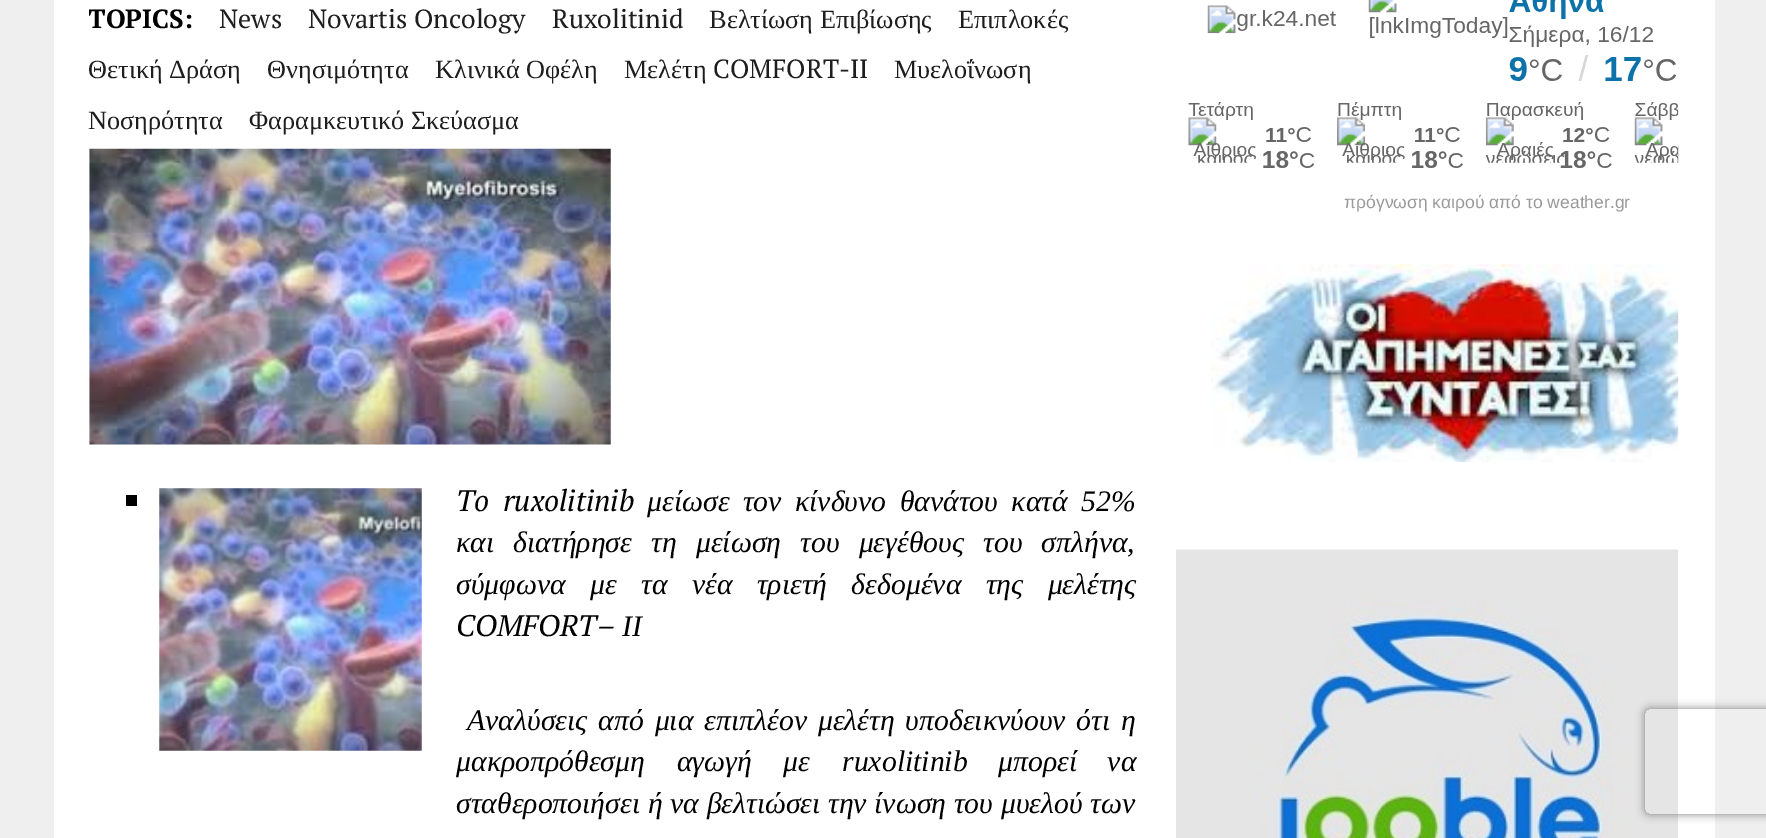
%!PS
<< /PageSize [1766 838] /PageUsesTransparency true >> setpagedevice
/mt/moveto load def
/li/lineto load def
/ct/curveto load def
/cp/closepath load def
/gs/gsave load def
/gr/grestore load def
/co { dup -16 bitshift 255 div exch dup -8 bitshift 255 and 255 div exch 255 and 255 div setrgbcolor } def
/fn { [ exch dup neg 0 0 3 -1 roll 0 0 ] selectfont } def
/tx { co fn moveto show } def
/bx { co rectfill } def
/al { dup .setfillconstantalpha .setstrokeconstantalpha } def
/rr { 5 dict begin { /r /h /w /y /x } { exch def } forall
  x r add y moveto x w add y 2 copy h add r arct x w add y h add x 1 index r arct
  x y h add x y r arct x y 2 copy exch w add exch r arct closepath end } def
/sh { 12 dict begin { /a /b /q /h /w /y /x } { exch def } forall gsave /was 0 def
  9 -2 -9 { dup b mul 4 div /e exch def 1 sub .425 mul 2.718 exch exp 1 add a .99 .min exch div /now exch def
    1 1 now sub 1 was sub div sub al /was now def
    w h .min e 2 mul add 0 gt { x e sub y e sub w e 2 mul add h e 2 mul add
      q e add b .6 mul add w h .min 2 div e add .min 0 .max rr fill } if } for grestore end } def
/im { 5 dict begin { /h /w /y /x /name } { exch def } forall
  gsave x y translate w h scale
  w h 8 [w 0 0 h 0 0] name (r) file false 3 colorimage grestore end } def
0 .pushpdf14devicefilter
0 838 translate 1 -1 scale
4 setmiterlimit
0 0 1766 838 16#EFEFEF bx
54 0 1661 838 16#FFFFFF bx
(media/1.raw) 89 148 522 297 im
126 495 11 11 16#000000 bx
(media/2.raw) 159 488 263 263 im
(media/3.raw) 1188 0 491 168 im
(media/4.raw) 1211 264 468 198 im
(media/5.raw) 1176 549 502 289 im
gs
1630 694 mt 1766 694 li 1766 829 li 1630 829 li cp 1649 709 mt 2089 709 li 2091 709 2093 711 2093 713 ct 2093 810 li 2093 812 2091 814 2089 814 ct 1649 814 li 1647 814 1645 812 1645 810 ct 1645 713 li 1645 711 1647 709 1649 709 ct cp eoclip newpath
16#808080 co
1645 709 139 105 4 4.5 1 sh
gr
gs
89 0 1047 149 rectclip
(TOPICS:) 88 28 /PTSerif-Bold 26.25 16#000000 tx
gr
(News) 219 28 /PTSerif-Regular 26.25 16#1F1E1E tx
(Novartis Oncology) 308 28 /PTSerif-Regular 26.25 16#1F1E1E tx
(Ruxolitinid) 552 28 /PTSerif-Regular 26.25 16#1F1E1E tx
(Βελτίωση Επιβίωσης) 709 28 /LiberationSerif-Regular 26.25 16#1F1E1E tx
(Επιπλοκές) 958 28 /LiberationSerif-Regular 26.25 16#1F1E1E tx
(Θετική Δράση) 88 78 /LiberationSerif-Regular 26.25 16#1F1E1E tx
(Θνησιμότητα) 267 78 /LiberationSerif-Regular 26.25 16#1F1E1E tx
(Κλινικά Οφέλη) 435 78 /LiberationSerif-Regular 26.25 16#1F1E1E tx
(Μελέτη) 624 78 /LiberationSerif-Regular 26.25 16#1F1E1E tx
(COMFORT-II) 713 78 /PTSerif-Regular 26.25 16#1F1E1E tx
(Μυελοΐνωση) 894 78 /LiberationSerif-Regular 26.25 16#1F1E1E tx
(Νοσηρότητα) 88 129 /LiberationSerif-Regular 26.25 16#1F1E1E tx
(Φαραμκευτικό Σκεύασμα) 249 129 /LiberationSerif-Regular 26.25 16#1F1E1E tx
(To) 456 511 /PTSerif-Italic 29.75 16#000000 tx
(ruxolitinib) 503 511 /PTSerif-Italic 29.75 16#000000 tx
/LiberationSerif-Italic 29.75 fn
647 511 mt 6 0 32 (μείωσε τον κίνδυνο θανάτου κατά 52%) widthshow
456 552 mt 11.75 0 32 (και διατήρησε τη μείωση του μεγέθους του σπλήνα,) widthshow
456 594 mt 17 0 32 (σύμφωνα με τα νέα τριετή δεδομένα της μελέτης) widthshow
(COMFORT–) 456 636 /PTSerif-Italic 29.75 16#000000 tx
(ΙΙ) 622 636 /LiberationSerif-Italic 29.75 16#000000 tx
467 730 mt 3.5 0 32 (Αναλύσεις από μια επιπλέον μελέτη υποδεικνύουν ότι η) widthshow
456 771 mt 24.5 0 32 (μακροπρόθεσμη αγωγή με ruxolitinib) widthshow
998 771 mt 23 0 32 (μπορεί να) widthshow
456 813 mt .25 0 32 (σταθεροποιήσει ή να βελτιώσει την ίνωση του μυελού των) widthshow
(πρόγνωση καιρού από το weather.gr) 1344 208 /LiberationSans-Regular 17.5 16#999999 tx
.poppdf14devicefilter showpage
